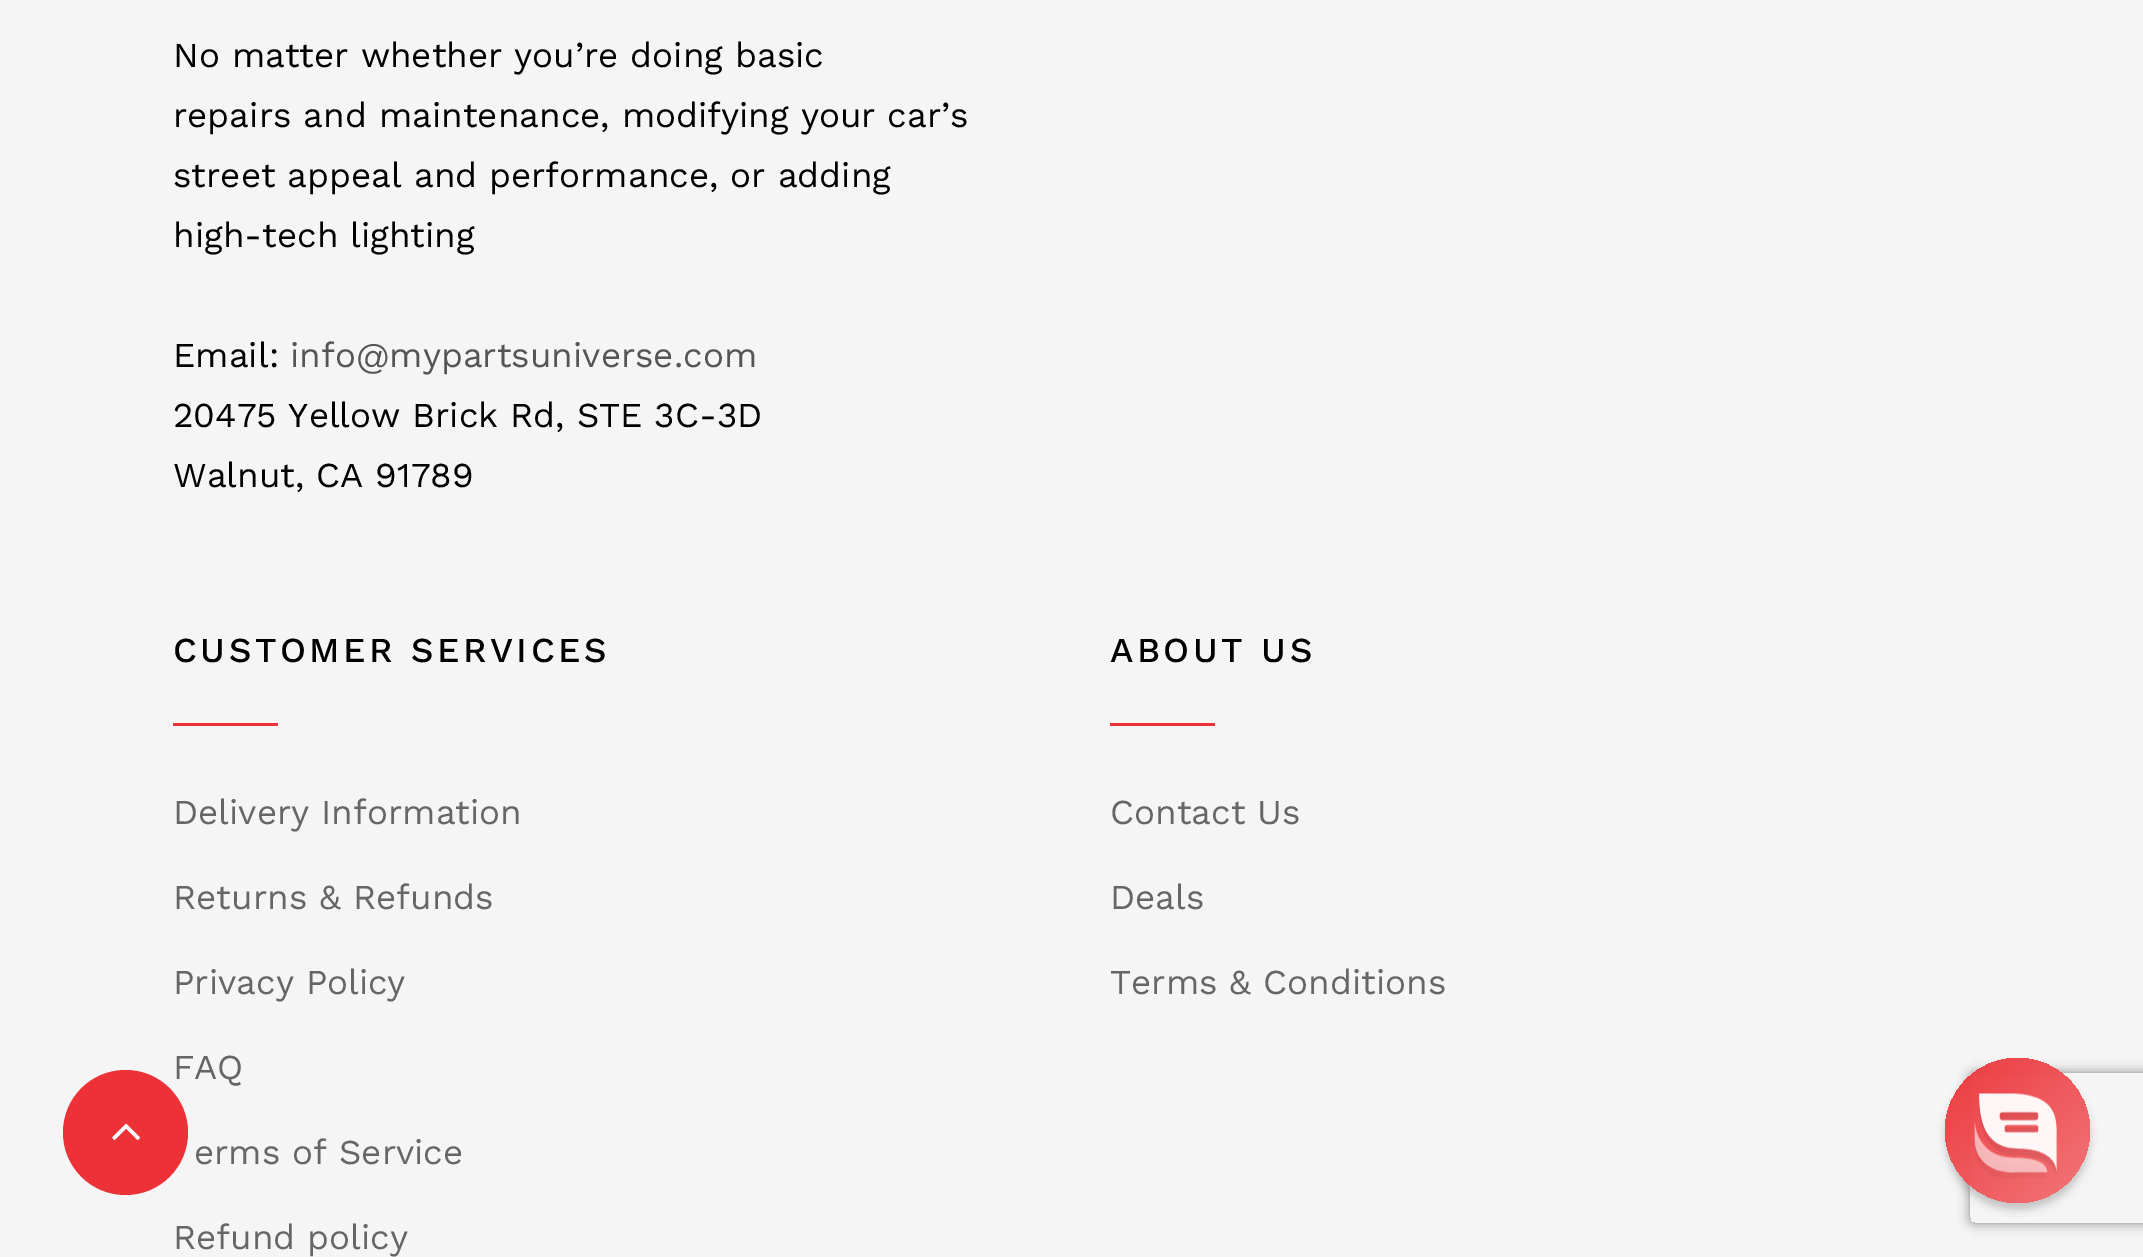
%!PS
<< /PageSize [2143 1257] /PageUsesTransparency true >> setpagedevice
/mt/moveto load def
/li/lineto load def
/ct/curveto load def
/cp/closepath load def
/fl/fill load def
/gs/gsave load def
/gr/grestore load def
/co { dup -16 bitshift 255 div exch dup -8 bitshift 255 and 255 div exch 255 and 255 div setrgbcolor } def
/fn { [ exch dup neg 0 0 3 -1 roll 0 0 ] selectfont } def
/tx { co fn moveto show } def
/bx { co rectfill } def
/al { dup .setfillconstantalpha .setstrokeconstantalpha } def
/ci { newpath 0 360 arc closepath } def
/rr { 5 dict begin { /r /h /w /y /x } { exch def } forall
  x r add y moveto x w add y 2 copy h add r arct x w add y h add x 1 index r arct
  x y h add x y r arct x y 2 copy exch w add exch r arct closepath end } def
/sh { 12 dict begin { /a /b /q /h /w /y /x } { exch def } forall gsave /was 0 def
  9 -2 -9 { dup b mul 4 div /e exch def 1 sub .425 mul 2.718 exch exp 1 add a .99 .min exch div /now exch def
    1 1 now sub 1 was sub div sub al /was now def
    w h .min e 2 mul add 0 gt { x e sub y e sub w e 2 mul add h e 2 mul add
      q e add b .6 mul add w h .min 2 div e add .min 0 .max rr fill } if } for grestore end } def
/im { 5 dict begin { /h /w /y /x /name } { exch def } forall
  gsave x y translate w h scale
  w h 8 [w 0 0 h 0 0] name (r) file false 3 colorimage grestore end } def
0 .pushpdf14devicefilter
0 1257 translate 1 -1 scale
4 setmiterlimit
0 0 2143 1257 16#F5F5F5 bx
173 723 105 3 16#EC3237 bx
1110 723 105 3 16#EC3237 bx
gs
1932 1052 mt 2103 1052 li 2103 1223 li 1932 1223 li cp 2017.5 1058 mt 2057.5 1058 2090 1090.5 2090 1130.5 ct 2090 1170.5 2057.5 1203 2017.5 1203 ct 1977.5 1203 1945 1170.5 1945 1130.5 ct 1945 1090.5 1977.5 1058 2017.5 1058 ct cp eoclip newpath
16#000000 co
1945 1065 145 145 72.5 4 .19 sh
gr
gs
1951 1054 mt 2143 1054 li 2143 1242 li 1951 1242 li cp 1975 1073 mt 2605 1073 li 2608 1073 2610 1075 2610 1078 ct 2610 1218 li 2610 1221 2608 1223 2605 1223 ct 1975 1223 li 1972 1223 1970 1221 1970 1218 ct 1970 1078 li 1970 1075 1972 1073 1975 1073 ct cp eoclip newpath
16#808080 co
1970 1073 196 150 5 6 1 sh
gr
0.95 al
gs 2017.5 1130.5 72.5 ci clip newpath
<< /ShadingType 2 /ColorSpace /DeviceRGB /Coords [1945 1058 2090 1203] /Extend [true true] /Function << /FunctionType 2 /Domain [0 1] /C0 [.925 .196 .216] /C1 [.949 .439 .451] /N 1 >> >> shfill gr
1 al
(media/2.raw) 1974 1093 83 85 im
(No matter whether you’re doing basic) 173 67 /WorkSans-Regular 35 16#000000 tx
(repairs and maintenance, modifying your car’s) 173 127 /WorkSans-Regular 35 16#000000 tx
(street appeal and performance, or adding) 173 187 /WorkSans-Regular 35 16#000000 tx
(high-tech lighting) 173 247 /WorkSans-Regular 35 16#000000 tx
(Email:) 173 367 /WorkSans-Regular 35 16#000000 tx
(info@mypartsuniverse.com) 290 367 /WorkSans-Regular 35 16#555555 tx
(20475 Yellow Brick Rd, STE 3C-3D) 173 427 /WorkSans-Regular 35 16#000000 tx
(Walnut, CA 91789) 173 487 /WorkSans-Regular 35 16#000000 tx
/WorkSans-Medium 35 fn
173 662 mt 3.5 0 (CUSTOMER SERVICES) ashow
(Delivery Information) 173 824 /WorkSans-Regular 35 16#666666 tx
(Returns & Refunds) 173 909 /WorkSans-Regular 35 16#666666 tx
(Privacy Policy) 173 994 /WorkSans-Regular 35 16#666666 tx
(FAQ) 173 1079 /WorkSans-Regular 35 16#666666 tx
16#EC3237 co
125.5 1132.5 62.5 ci fl
(media/1.raw) 112 1123 28 17 im
(erms of Service) 194 1164 /WorkSans-Regular 35 16#666666 tx
(Refund policy) 173 1249 /WorkSans-Regular 35 16#666666 tx
/WorkSans-Medium 35 fn
16#000000 co
1110 662 mt 3.5 0 (ABOUT US) ashow
(Contact Us) 1110 824 /WorkSans-Regular 35 16#666666 tx
(Deals) 1110 909 /WorkSans-Regular 35 16#666666 tx
(Terms & Conditions) 1110 994 /WorkSans-Regular 35 16#666666 tx
.poppdf14devicefilter showpage
